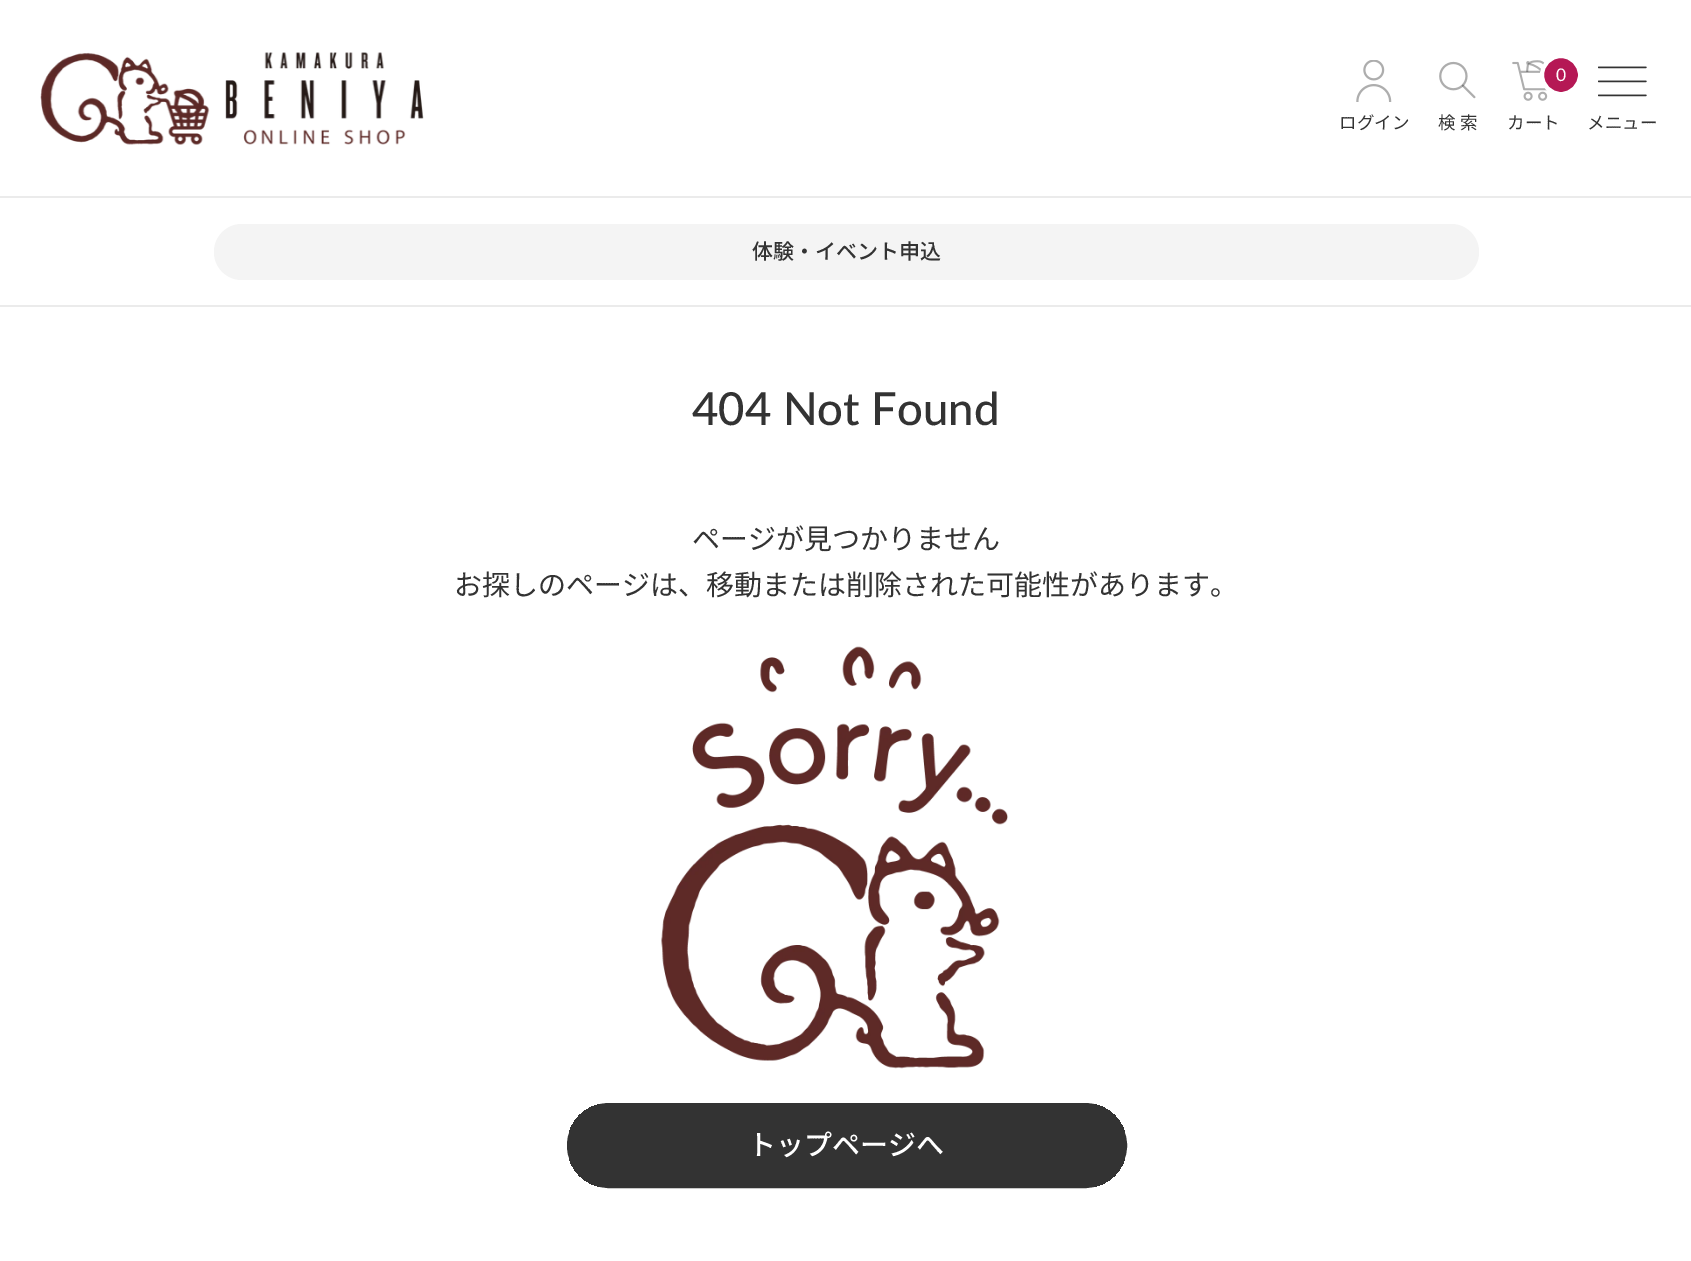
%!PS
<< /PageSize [1691 1261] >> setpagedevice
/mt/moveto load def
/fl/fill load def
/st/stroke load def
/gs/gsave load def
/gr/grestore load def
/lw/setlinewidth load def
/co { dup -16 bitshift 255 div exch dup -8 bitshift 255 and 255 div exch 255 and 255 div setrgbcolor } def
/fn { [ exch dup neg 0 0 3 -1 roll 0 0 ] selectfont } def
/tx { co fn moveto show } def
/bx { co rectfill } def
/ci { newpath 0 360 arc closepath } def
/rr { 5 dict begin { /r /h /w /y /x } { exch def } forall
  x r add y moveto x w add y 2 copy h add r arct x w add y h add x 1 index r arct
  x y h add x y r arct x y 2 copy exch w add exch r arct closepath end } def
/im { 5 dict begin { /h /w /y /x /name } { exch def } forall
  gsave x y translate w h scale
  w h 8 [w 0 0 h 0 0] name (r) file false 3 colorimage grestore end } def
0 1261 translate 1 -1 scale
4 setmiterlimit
0 0 1691 1261 16#FFFFFF bx
(media/1.raw) 40 52 384 93 im
(media/2.raw) 1356 60 36 42 im
(media/3.raw) 1439 61 37 38 im
(media/4.raw) 1512 60 42 41 im
16#B51855 co
1561 75 19 ci gs fl gr
16#FFFFFF co
4 lw
st
(media/5.raw) 1598 66 49 31 im
0 196 1691 2 16#EBEBEB bx
0 305 1691 2 16#EBEBEB bx
16#F4F4F4 co
214 224 1265 56 28 rr fl
(media/6.raw) 661 646 347 423 im
gs
567 1103 560 85 42.5 rr clip newpath
569 1104 556 83 16#333333 bx
gr
16#333333 co
2 lw
568 1104 558 83 41.5 rr st
(ログイン) 1339 129 /NotoSansJP-Regular 17.5 16#333333 tx
1438 129 mt 1 0 32 (検 索) widthshow
(0) 1556 81 /Lato-Regular 17.5 16#FFFFFF tx
(カート) 1507 129 /NotoSansJP-Regular 17.5 16#333333 tx
(メニュー) 1587 129 /NotoSansJP-Regular 17.5 16#333333 tx
(体験・イベント申込) 752 259 /NotoSansJP-Medium 21 16#333333 tx
(404 Not Found) 692 425 /Lato-Medium 45.5 16#333333 tx
(ページが見つかりません) 692 549 /NotoSansJP-Regular 28 16#333333 tx
(お探しのページは、移動または削除された可能性があります。) 454 595 /NotoSansJP-Regular 28 16#333333 tx
(トップページへ) 748 1155 /NotoSansJP-Medium 28 16#FFFFFF tx
showpage
